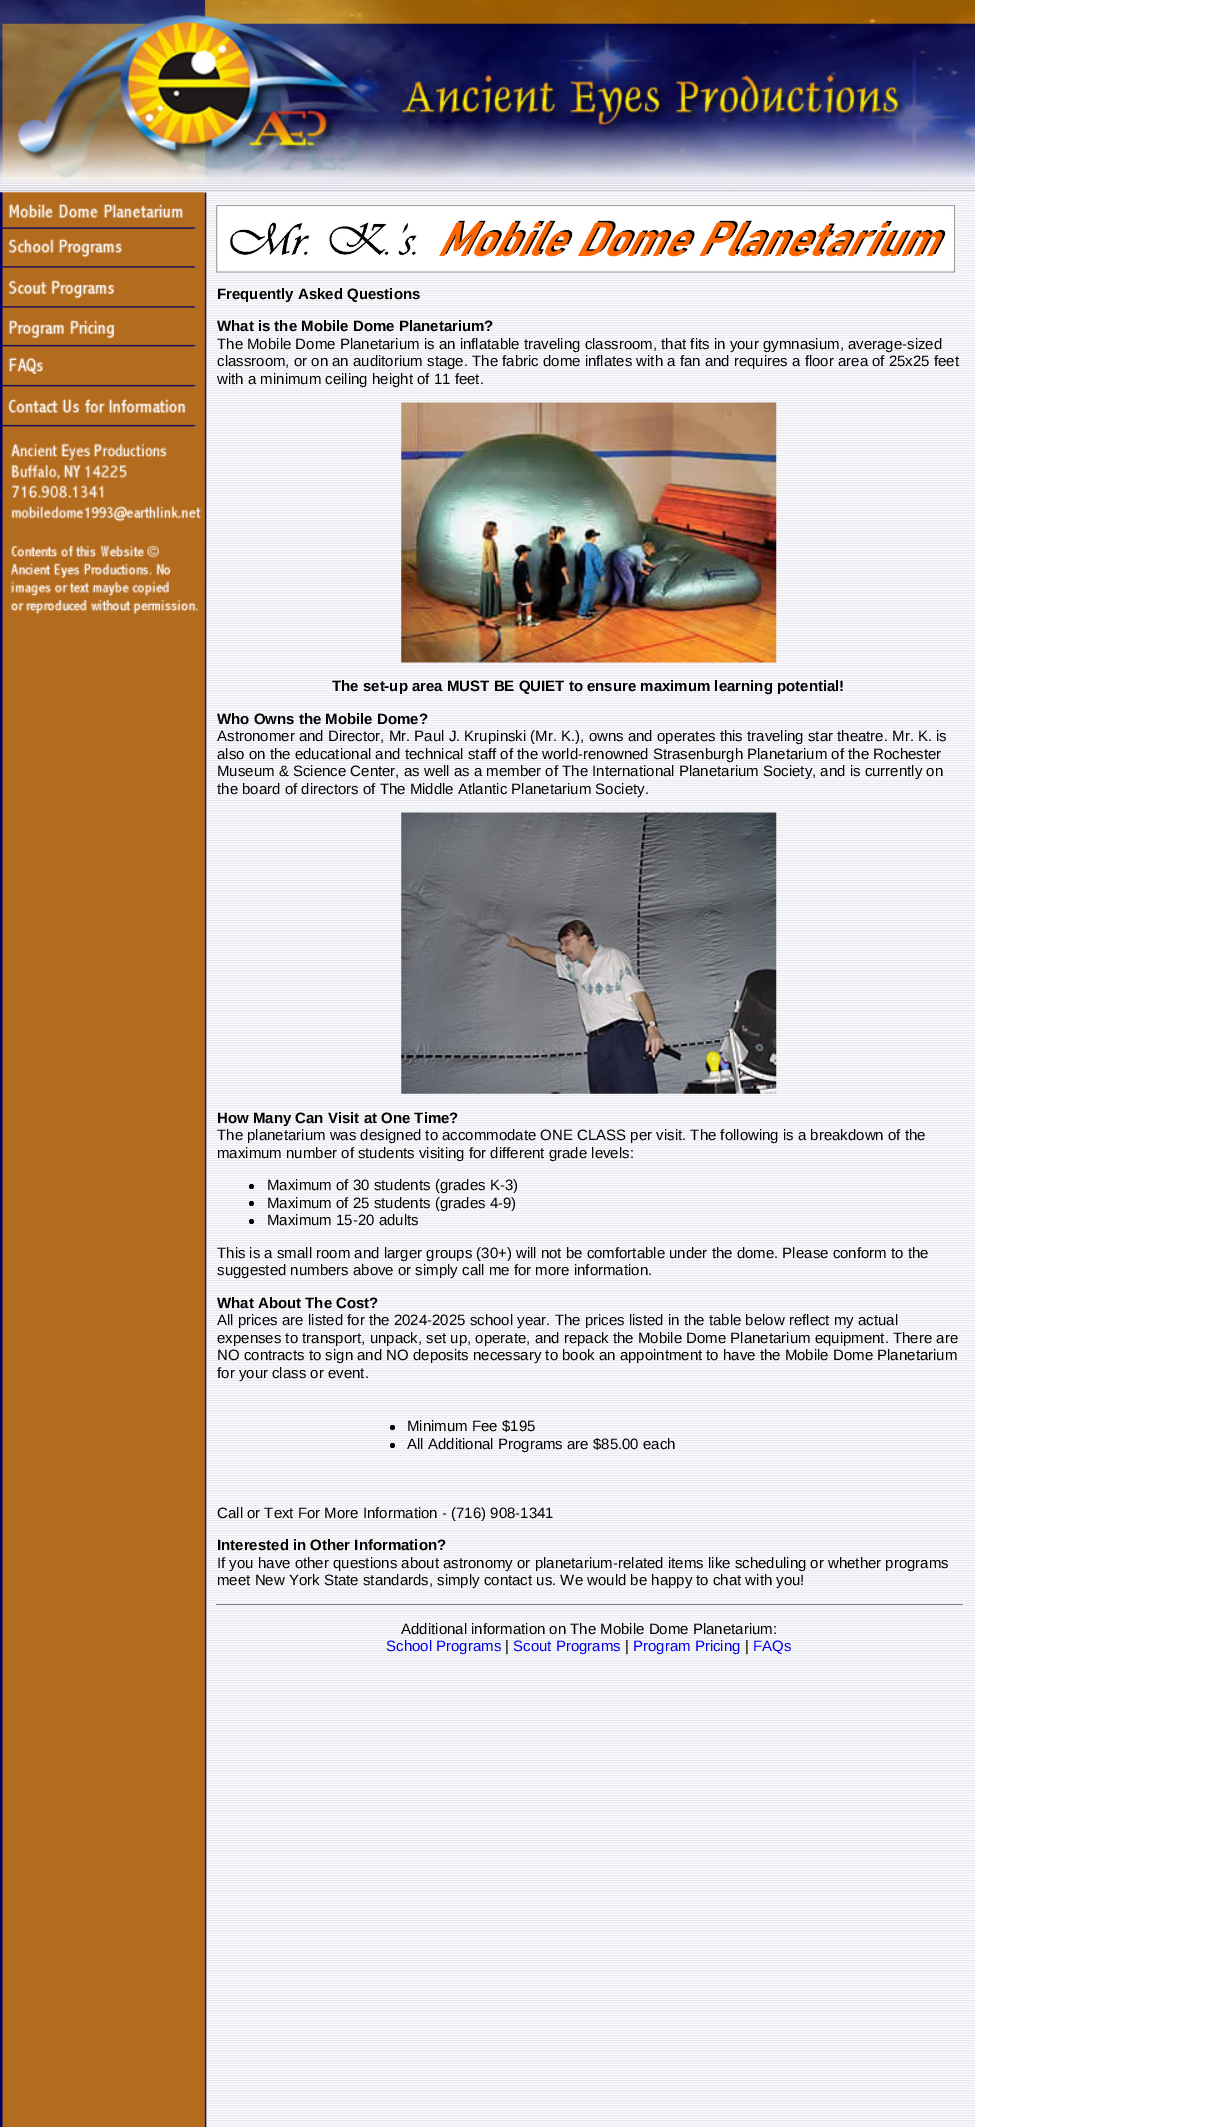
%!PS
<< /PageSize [1223 2127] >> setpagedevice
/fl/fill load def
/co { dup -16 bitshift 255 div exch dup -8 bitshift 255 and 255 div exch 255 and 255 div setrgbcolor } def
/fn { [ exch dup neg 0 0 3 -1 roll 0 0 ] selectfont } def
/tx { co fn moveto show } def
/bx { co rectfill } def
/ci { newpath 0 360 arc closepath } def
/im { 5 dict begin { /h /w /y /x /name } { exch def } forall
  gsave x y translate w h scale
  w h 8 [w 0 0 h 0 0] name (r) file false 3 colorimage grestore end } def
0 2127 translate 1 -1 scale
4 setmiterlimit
0 0 1223 2127 16#FFFFFF bx
(media/1.raw) 0 192 975 1935 im
(media/2.raw) 0 0 975 193 im
(media/3.raw) 0 192 204 422 im
(media/4.raw) 216 205 739 68 im
(media/5.raw) 401 402 376 261 im
(media/6.raw) 401 812 376 282 im
16#000000 co
251.5 1186.5 2.5 ci fl
251.5 1203.5 2.5 ci fl
251.5 1221.5 2.5 ci fl
392.5 1427.5 2.5 ci fl
392.5 1445.5 2.5 ci fl
216 1604 747 1 16#808080 bx
(Frequently Asked Questions) 217 299 /LiberationSans-Bold 15 16#000000 tx
(What is the Mobile Dome Planetarium?) 217 331 /LiberationSans-Bold 15 16#000000 tx
(The Mobile Dome Planetarium is an inflatable traveling classroom, that fits in your gymnasium, average-sized) 217 349 /LiberationSans-Regular 15 16#000000 tx
(classroom, or on an auditorium stage. The fabric dome inflates with a fan and requires a floor area of 25x25 feet) 217 366 /LiberationSans-Regular 15 16#000000 tx
(with a minimum ceiling height of 11 feet.) 217 384 /LiberationSans-Regular 15 16#000000 tx
(The set-up area MUST BE QUIET to ensure maximum learning potential!) 332 691 /LiberationSans-Bold 15 16#000000 tx
(Who Owns the Mobile Dome?) 217 724 /LiberationSans-Bold 15 16#000000 tx
(Astronomer and Director, Mr. Paul J. Krupinski \(Mr. K.\), owns and operates this traveling star theatre. Mr. K. is) 217 741 /LiberationSans-Regular 15 16#000000 tx
(also on the educational and technical staff of the world-renowned Strasenburgh Planetarium of the Rochester) 217 759 /LiberationSans-Regular 15 16#000000 tx
(Museum & Science Center, as well as a member of The International Planetarium Society, and is currently on) 217 776 /LiberationSans-Regular 15 16#000000 tx
(the board of directors of The Middle Atlantic Planetarium Society.) 217 794 /LiberationSans-Regular 15 16#000000 tx
(How Many Can Visit at One Time?) 217 1123 /LiberationSans-Bold 15 16#000000 tx
(The planetarium was designed to accommodate ONE CLASS per visit. The following is a breakdown of the) 217 1140 /LiberationSans-Regular 15 16#000000 tx
(maximum number of students visiting for different grade levels:) 217 1158 /LiberationSans-Regular 15 16#000000 tx
(Maximum of 30 students \(grades K-3\)) 267 1190 /LiberationSans-Regular 15 16#000000 tx
(Maximum of 25 students \(grades 4-9\)) 267 1208 /LiberationSans-Regular 15 16#000000 tx
(Maximum 15-20 adults) 267 1225 /LiberationSans-Regular 15 16#000000 tx
(This is a small room and larger groups \(30+\) will not be comfortable under the dome. Please conform to the) 217 1258 /LiberationSans-Regular 15 16#000000 tx
(suggested numbers above or simply call me for more information.) 217 1275 /LiberationSans-Regular 15 16#000000 tx
(What About The Cost?) 217 1308 /LiberationSans-Bold 15 16#000000 tx
(All prices are listed for the 2024-2025 school year. The prices listed in the table below reflect my actual) 217 1325 /LiberationSans-Regular 15 16#000000 tx
(expenses to transport, unpack, set up, operate, and repack the Mobile Dome Planetarium equipment. There are) 217 1343 /LiberationSans-Regular 15 16#000000 tx
(NO contracts to sign and NO deposits necessary to book an appointment to have the Mobile Dome Planetarium) 217 1360 /LiberationSans-Regular 15 16#000000 tx
(for your class or event.) 217 1378 /LiberationSans-Regular 15 16#000000 tx
(Minimum Fee $195) 407 1431 /LiberationSans-Regular 15 16#000000 tx
(All Additional Programs are $85.00 each) 407 1449 /LiberationSans-Regular 15 16#000000 tx
(Call or Text For More Information - \(716\) 908-1341) 217 1518 /LiberationSans-Regular 15 16#000000 tx
(Interested in Other Information?) 217 1550 /LiberationSans-Bold 15 16#000000 tx
(If you have other questions about astronomy or planetarium-related items like scheduling or whether programs) 217 1568 /LiberationSans-Regular 15 16#000000 tx
(meet New York State standards, simply contact us. We would be happy to chat with you!) 217 1585 /LiberationSans-Regular 15 16#000000 tx
(Additional information on The Mobile Dome Planetarium:) 401 1634 /LiberationSans-Regular 15 16#000000 tx
(School Programs) 386 1651 /LiberationSans-Regular 15 16#0000EE tx
(|) 505 1651 /LiberationSans-Regular 15 16#000000 tx
(Scout Programs) 513 1651 /LiberationSans-Regular 15 16#0000EE tx
(|) 625 1651 /LiberationSans-Regular 15 16#000000 tx
(Program Pricing) 633 1651 /LiberationSans-Regular 15 16#0000EE tx
(|) 745 1651 /LiberationSans-Regular 15 16#000000 tx
(FAQs) 753 1651 /LiberationSans-Regular 15 16#0000EE tx
showpage
